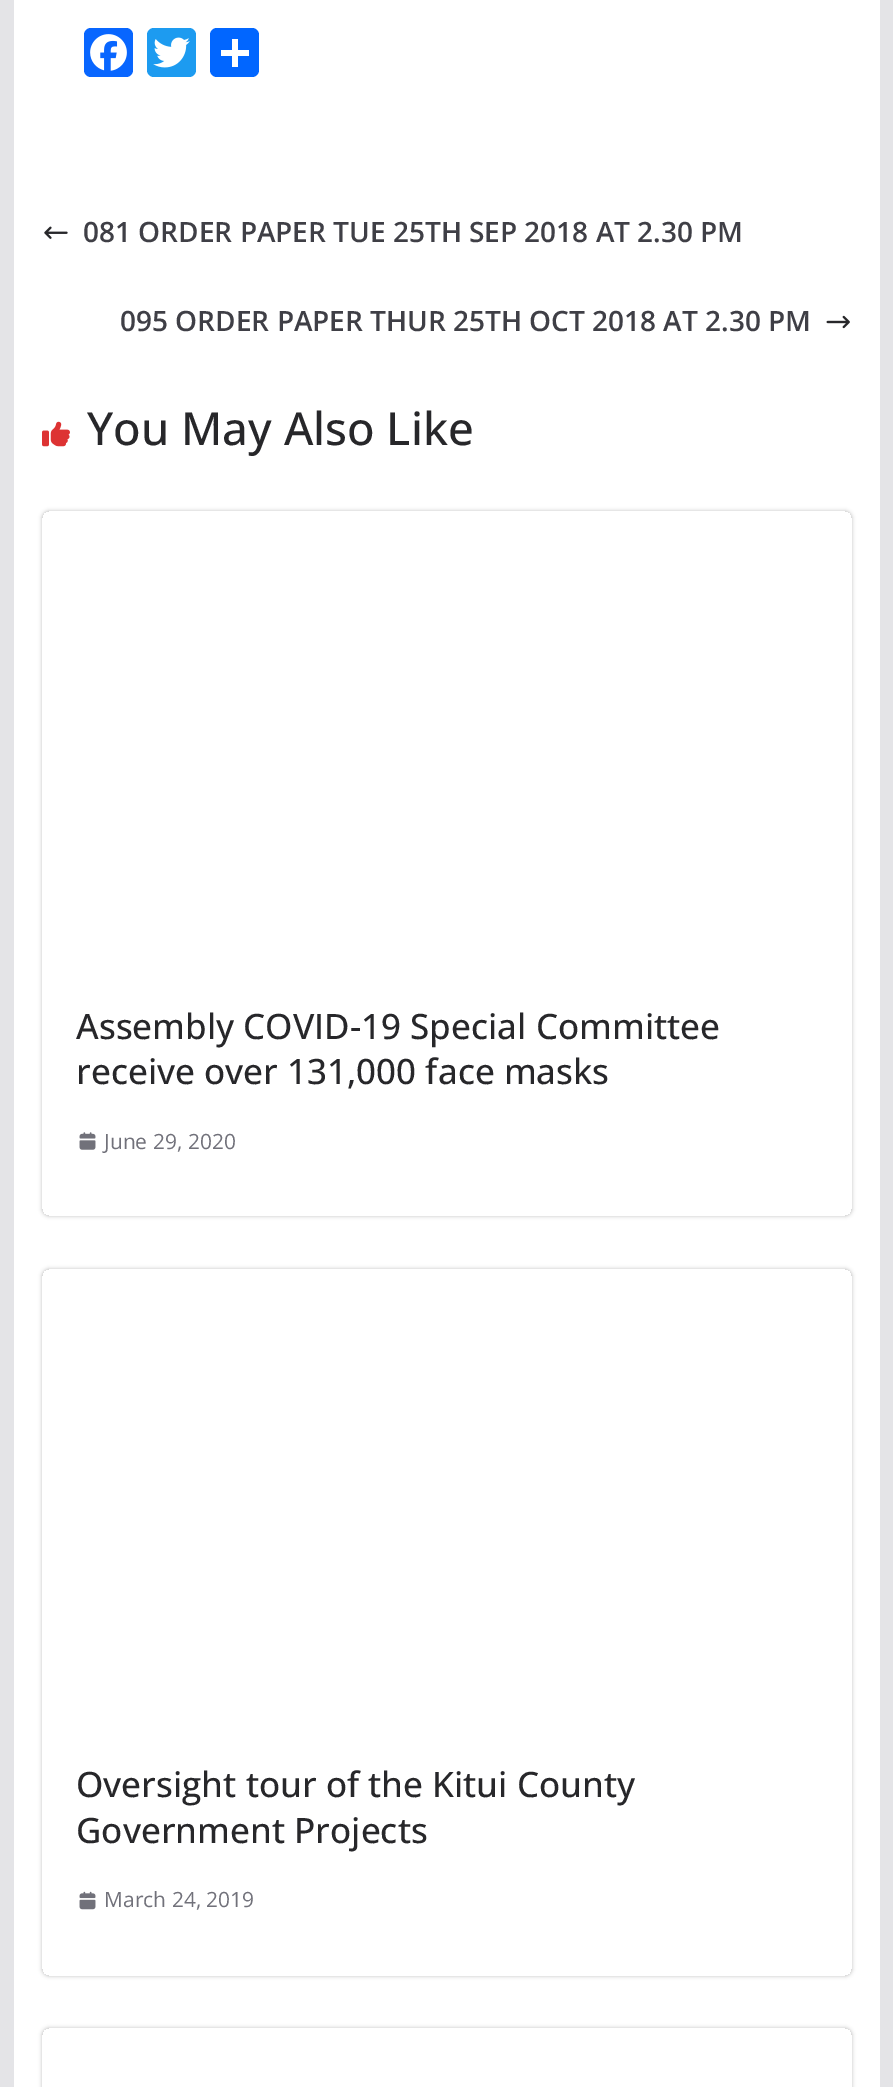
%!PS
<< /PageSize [893 2087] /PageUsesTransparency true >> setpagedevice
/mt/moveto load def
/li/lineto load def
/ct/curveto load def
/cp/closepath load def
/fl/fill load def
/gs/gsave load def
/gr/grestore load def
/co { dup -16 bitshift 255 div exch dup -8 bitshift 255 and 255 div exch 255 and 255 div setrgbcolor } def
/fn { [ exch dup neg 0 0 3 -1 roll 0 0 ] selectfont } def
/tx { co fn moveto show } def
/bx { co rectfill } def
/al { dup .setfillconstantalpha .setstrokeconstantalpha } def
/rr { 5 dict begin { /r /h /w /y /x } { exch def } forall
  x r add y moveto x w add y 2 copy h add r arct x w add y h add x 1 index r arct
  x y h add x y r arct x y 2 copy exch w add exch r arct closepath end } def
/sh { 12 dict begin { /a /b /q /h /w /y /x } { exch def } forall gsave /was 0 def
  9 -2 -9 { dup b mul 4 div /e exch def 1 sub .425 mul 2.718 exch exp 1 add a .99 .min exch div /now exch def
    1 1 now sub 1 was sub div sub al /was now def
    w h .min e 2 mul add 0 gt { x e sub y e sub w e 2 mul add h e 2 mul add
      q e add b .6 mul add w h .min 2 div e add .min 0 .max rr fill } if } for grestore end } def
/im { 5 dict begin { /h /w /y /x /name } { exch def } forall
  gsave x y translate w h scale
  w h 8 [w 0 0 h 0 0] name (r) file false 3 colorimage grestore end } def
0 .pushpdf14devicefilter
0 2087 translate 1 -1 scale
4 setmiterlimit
0 0 893 2087 16#E4E4E7 bx
14 0 866 2087 16#FFFFFF bx
16#0866FF co
84 28 49 49 7 rr fl
(media/1.raw) 90 34 37 37 im
16#1D9BF0 co
147 28 49 49 7 rr fl
(media/2.raw) 153 37 37 31 im
16#0166FF co
210 28 49 49 7 rr fl
232 39 6 28 16#FFFFFF bx
221 50 28 6 16#FFFFFF bx
(media/3.raw) 44 226 24 13 im
(media/4.raw) 826 315 24 14 im
(media/5.raw) 42 421 28 26 im
gs
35 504 mt 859 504 li 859 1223 li 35 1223 li cp 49 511 mt 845 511 li 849 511 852 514 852 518 ct 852 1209 li 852 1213 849 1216 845 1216 ct 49 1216 li 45 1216 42 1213 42 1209 ct 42 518 li 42 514 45 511 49 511 ct cp eoclip newpath
16#000000 co
42 511 810 705 7 2 .24 sh
gr
(media/6.raw) 79 1132 17 18 im
gs
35 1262 mt 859 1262 li 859 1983 li 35 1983 li cp 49 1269 mt 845 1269 li 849 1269 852 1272 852 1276 ct 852 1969 li 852 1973 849 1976 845 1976 ct 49 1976 li 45 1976 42 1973 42 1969 ct 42 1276 li 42 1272 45 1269 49 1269 ct cp eoclip newpath
16#000000 co
42 1269 810 707 7 2 .24 sh
gr
(media/7.raw) 79 1891 17 19 im
gs
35 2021 mt 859 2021 li 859 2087 li 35 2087 li cp 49 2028 mt 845 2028 li 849 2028 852 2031 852 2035 ct 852 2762 li 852 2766 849 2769 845 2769 ct 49 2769 li 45 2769 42 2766 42 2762 ct 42 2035 li 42 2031 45 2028 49 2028 ct cp eoclip newpath
16#000000 co
42 2028 810 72 7 2 .24 sh
gr
(081 ORDER PAPER TUE 25TH SEP 2018 AT 2.30 PM) 83 242 /OpenSans-SemiBold 28 16#3F3F46 tx
(095 ORDER PAPER THUR 25TH OCT 2018 AT 2.30 PM) 120 331 /OpenSans-SemiBold 28 16#3F3F46 tx
(You May Also Like) 87 445 /OpenSans-Medium 45.5 16#27272A tx
(Assembly COVID-19 Special Committee) 76 1039 /OpenSans-Medium 35 16#27272A tx
(receive over 131,000 face masks) 76 1084 /OpenSans-Medium 35 16#27272A tx
(June 29, 2020) 104 1149 /OpenSans-Regular 21 16#71717A tx
(Oversight tour of the Kitui County) 76 1797 /OpenSans-Medium 35 16#27272A tx
(Government Projects) 76 1843 /OpenSans-Medium 35 16#27272A tx
(March 24, 2019) 104 1907 /OpenSans-Regular 21 16#71717A tx
.poppdf14devicefilter showpage
